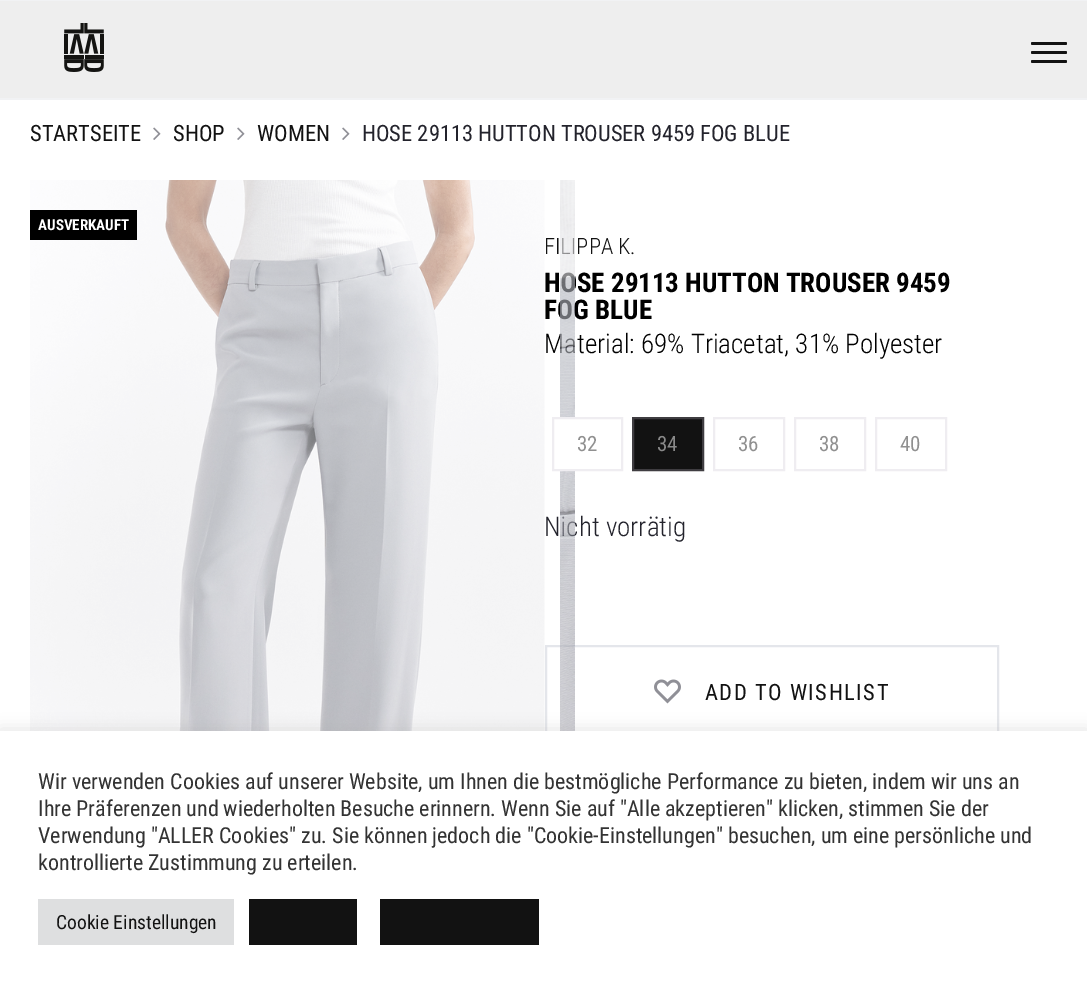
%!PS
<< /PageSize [1087 990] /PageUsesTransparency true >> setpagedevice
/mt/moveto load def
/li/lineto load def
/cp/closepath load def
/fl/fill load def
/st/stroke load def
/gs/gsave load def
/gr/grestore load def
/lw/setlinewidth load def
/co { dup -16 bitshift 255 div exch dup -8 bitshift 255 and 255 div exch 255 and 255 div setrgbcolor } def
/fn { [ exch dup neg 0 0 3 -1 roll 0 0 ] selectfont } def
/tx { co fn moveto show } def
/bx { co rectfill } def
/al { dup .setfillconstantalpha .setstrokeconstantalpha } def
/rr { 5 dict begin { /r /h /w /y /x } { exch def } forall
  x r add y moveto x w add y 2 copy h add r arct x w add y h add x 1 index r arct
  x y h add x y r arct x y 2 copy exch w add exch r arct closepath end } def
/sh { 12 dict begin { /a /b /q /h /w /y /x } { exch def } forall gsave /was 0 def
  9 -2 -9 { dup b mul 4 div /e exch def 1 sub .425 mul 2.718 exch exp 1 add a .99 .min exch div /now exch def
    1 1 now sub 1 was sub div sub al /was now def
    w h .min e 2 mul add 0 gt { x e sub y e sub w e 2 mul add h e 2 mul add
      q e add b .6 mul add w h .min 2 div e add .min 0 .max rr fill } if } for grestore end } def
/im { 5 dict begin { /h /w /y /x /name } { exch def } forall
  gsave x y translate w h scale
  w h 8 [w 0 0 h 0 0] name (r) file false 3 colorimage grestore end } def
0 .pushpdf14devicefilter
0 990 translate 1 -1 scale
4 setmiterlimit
0 0 1087 990 16#FFFFFF bx
0 1 1087 97 16#EEEEEE bx
0 98 1087 2 16#F1F2F4 bx
(media/1.raw) 64 23 40 49 im
16#121212 co
1031 42 36 3 1.5 rr fl
1031 51 36 3 1.5 rr fl
1031 60 36 3 1.5 rr fl
0 0 1087 1 16#F1F2F4 bx
(media/2.raw) 153 127 8 13 im
(media/2.raw) 237 127 8 13 im
(media/2.raw) 342 127 8 13 im
(media/3.raw) 30 180 515 551 im
30 210 107 30 16#000000 bx
16#121212 co
633 418 mt 703 418 li 703 470 li 633 470 li cp gs fl gr
16#3F3D41 co
2 lw
st
16#EFEDF1 co
714 418 70 52 rectstroke
795 418 70 52 rectstroke
876 418 70 52 rectstroke
16#E4E6EB co
546 646 452 88 rectstroke
(media/5.raw) 654 679 27 25 im
(STARTSEITE) 30 141 /RobotoCondensed-Regular 22.5 16#121212 tx
(SHOP) 173 141 /RobotoCondensed-Regular 22.5 16#121212 tx
(WOMEN) 257 141 /RobotoCondensed-Regular 22.5 16#121212 tx
(HOSE 29113 HUTTON TROUSER 9459 FOG BLUE) 362 141 /RobotoCondensed-Regular 22.5 16#23232C tx
(AUSVERKAUFT) 38 230 /RobotoCondensed-Bold 15 16#FFFFFF tx
(FILIPPA K.) 544 254 /RobotoCondensed-Light 22.5 16#121212 tx
(HOSE 29113 HUTTON TROUSER 9459) 544 292 /RobotoCondensed-Bold 27 16#000000 tx
(FOG BLUE) 544 319 /RobotoCondensed-Bold 27 16#000000 tx
(Material: 69% Triacetat, 31% Polyester) 544 353 /RobotoCondensed-Light 27 16#000000 tx
(34) 657 451 /RobotoCondensed-Regular 21 16#898989 tx
(36) 738 451 /RobotoCondensed-Regular 21 16#909090 tx
(38) 819 451 /RobotoCondensed-Regular 21 16#909090 tx
(40) 900 451 /RobotoCondensed-Regular 21 16#909090 tx
(Nicht vorrätig) 544 536 /RobotoCondensed-Light 27 16#23232C tx
(media/4.raw) 560 180 15 551 im
560 419 15 50 16#FFFFFF bx
16#EFEDF1 co
553 418 69 52 rectstroke
(32) 577 451 /RobotoCondensed-Regular 21 16#909090 tx
/RobotoCondensed-Regular 22.5 fn
16#121212 co
705 700 mt 1.5 0 (ADD TO WISHLIST) ashow
16#ACABAB co
0 729 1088 260 0 7.5 .3 sh
0 731 1087 259 16#FFFFFF bx
(Wir verwenden Cookies auf unserer Website, um Ihnen die bestmögliche Performance zu bieten, indem wir uns an) 38 789 /RobotoCondensed-Regular 22 16#333333 tx
(Ihre Präferenzen und wiederholten Besuche erinnern. Wenn Sie auf "Alle akzeptieren" klicken, stimmen Sie der) 38 816 /RobotoCondensed-Regular 22 16#333333 tx
(Verwendung "ALLER Cookies" zu. Sie können jedoch die "Cookie-Einstellungen" besuchen, um eine persönliche und) 38 843 /RobotoCondensed-Regular 22 16#333333 tx
(kontrollierte Zustimmung zu erteilen.) 38 870 /RobotoCondensed-Regular 22 16#333333 tx
38 899 196 46 16#DEDFE0 bx
(Cookie Einstellungen) 56 929 /RobotoCondensed-Regular 19.5 16#121212 tx
249 899 108 46 16#121212 bx
380 899 159 46 16#121212 bx
.poppdf14devicefilter showpage
